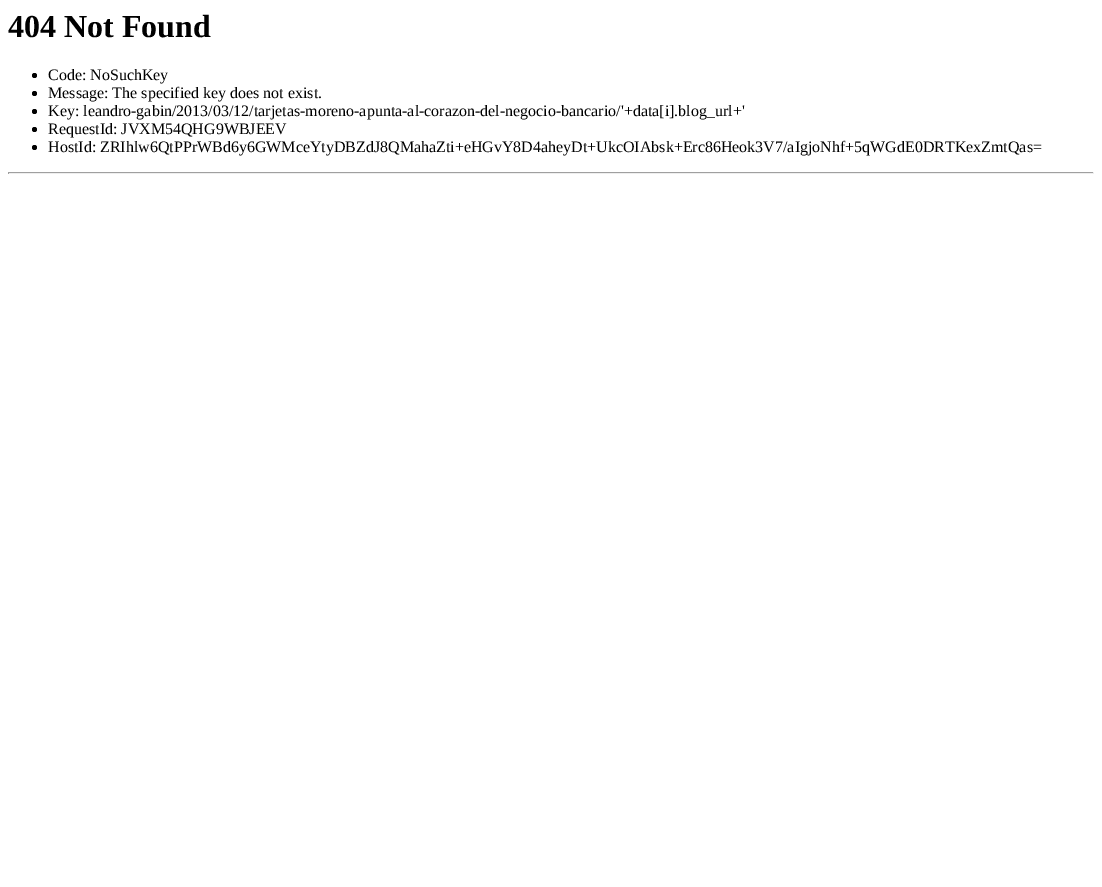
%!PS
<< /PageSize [1102 887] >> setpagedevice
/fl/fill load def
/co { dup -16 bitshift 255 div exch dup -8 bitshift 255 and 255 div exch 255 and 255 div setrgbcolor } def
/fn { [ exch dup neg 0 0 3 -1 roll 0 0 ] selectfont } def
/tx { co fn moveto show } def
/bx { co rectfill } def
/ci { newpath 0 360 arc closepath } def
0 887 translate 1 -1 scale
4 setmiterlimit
0 0 1102 887 16#FFFFFF bx
16#000000 co
34.5 75.5 2.5 ci fl
34.5 93.5 2.5 ci fl
34.5 111.5 2.5 ci fl
34.5 129.5 2.5 ci fl
34.5 147.5 2.5 ci fl
8 172 1086 1 16#9F9F9F bx
1093 172 1 2 16#EEEEEE bx
8 173 1086 1 16#EEEEEE bx
8 172 1 2 16#9F9F9F bx
(404 Not Found) 8 37 /LiberationSerif-Bold 32 16#000000 tx
(Code: NoSuchKey) 48 80 /LiberationSerif-Regular 16 16#000000 tx
(Message: The specified key does not exist.) 48 98 /LiberationSerif-Regular 16 16#000000 tx
(Key: leandro-gabin/2013/03/12/tarjetas-moreno-apunta-al-corazon-del-negocio-bancario/'+data[i].blog_url+') 48 116 /LiberationSerif-Regular 16 16#000000 tx
(RequestId: JVXM54QHG9WBJEEV) 48 134 /LiberationSerif-Regular 16 16#000000 tx
(HostId: ZRIhlw6QtPPrWBd6y6GWMceYtyDBZdJ8QMahaZti+eHGvY8D4aheyDt+UkcOIAbsk+Erc86Heok3V7/aIgjoNhf+5qWGdE0DRTKexZmtQas=) 48 152 /LiberationSerif-Regular 16 16#000000 tx
showpage
